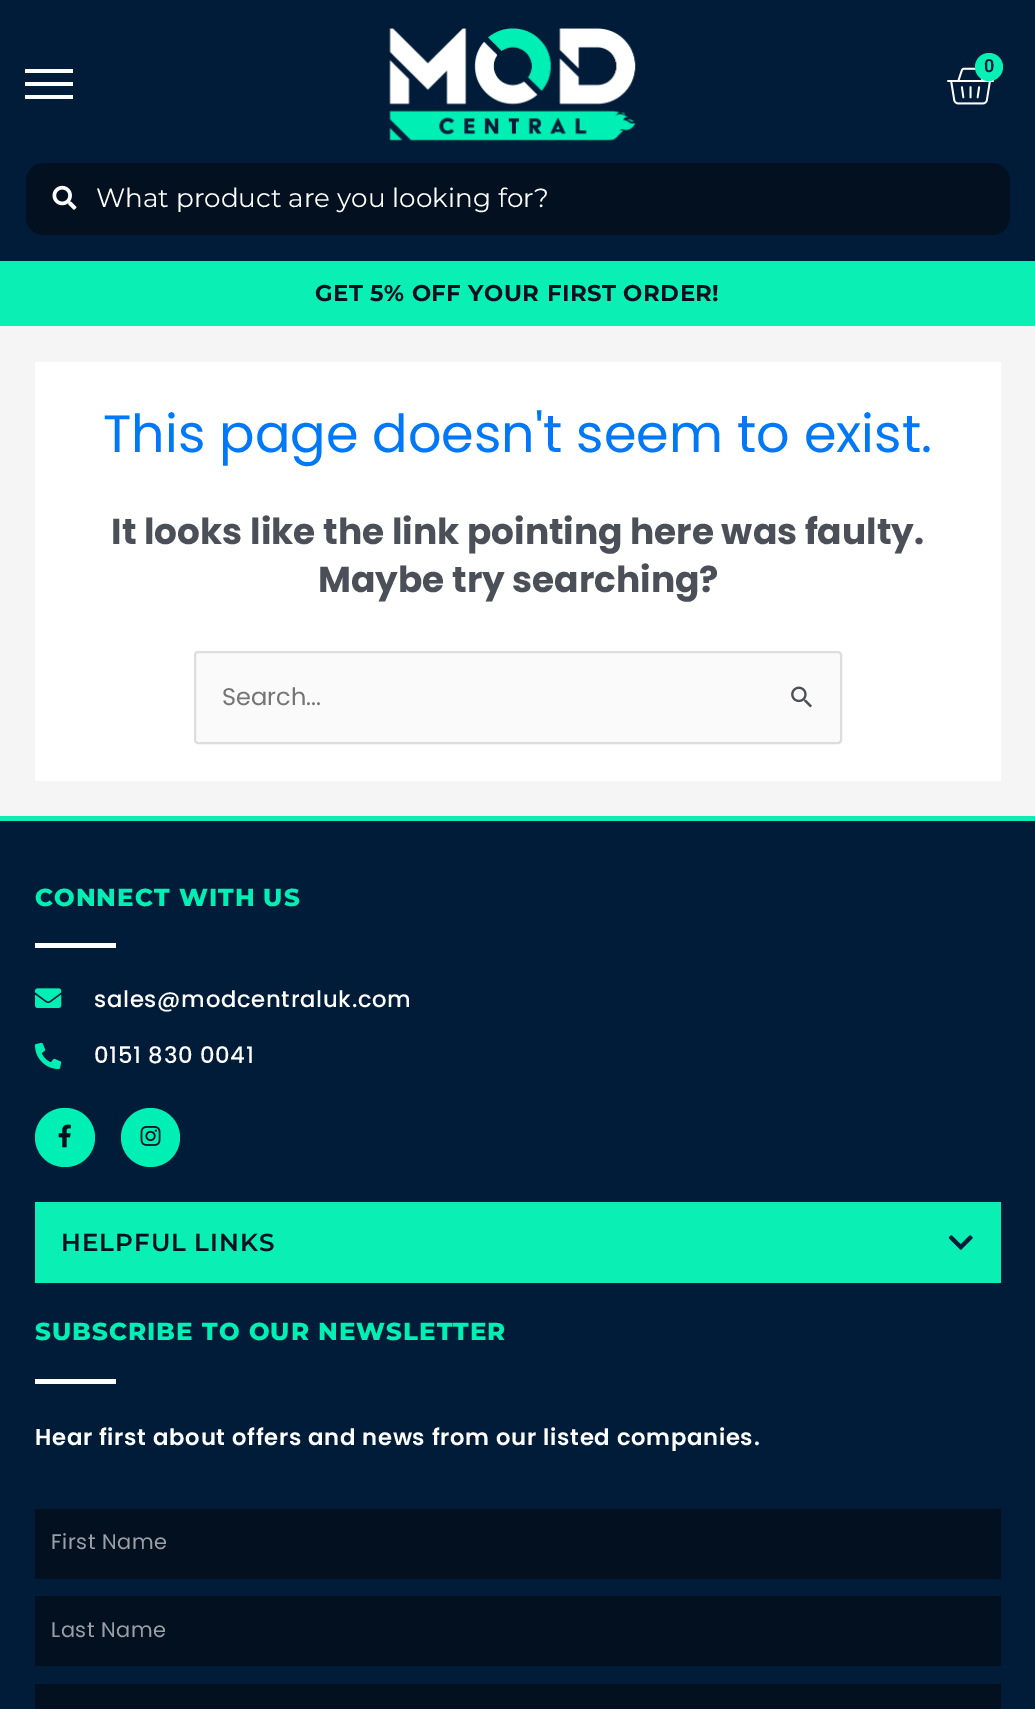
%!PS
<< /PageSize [1035 1709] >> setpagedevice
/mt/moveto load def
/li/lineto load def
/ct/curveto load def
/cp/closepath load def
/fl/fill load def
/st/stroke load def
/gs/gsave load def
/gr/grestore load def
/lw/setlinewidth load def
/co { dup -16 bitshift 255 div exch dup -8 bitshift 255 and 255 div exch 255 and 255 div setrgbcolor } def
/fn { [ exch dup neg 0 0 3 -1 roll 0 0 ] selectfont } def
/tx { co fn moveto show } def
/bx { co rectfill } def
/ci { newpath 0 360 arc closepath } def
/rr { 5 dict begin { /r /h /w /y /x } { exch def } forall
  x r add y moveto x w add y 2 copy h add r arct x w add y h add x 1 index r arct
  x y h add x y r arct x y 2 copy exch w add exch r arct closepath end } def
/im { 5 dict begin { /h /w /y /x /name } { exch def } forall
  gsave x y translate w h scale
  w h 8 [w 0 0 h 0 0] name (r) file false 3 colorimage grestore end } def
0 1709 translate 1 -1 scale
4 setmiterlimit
0 0 1035 1709 16#F5F5F5 bx
16#011C38 co
0 0 mt 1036 0 li 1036 161 li 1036 162 1035 163 1034 163 ct 0 163 li cp fl
(media/1.raw) 389 28 247 113 im
(media/2.raw) 947 67 47 38 im
16#09EFB4 co
989 67 14 ci fl
25 82 48 4 16#FFFFFF bx
25 69 48 4 16#FFFFFF bx
25 95 48 4 16#FFFFFF bx
0 163 1035 98 16#011C38 bx
16#021020 co
26 163 984 72 18 rr fl
(media/3.raw) 52 185 25 25 im
0 261 1035 65 16#09EFB4 bx
35 362 966 419 16#FFFFFF bx
16#FAFAFA co
195 652 646 91 3 rr gs fl gr
16#DDDDDD co
2 lw
st
(media/4.raw) 791 686 21 22 im
0 821 1035 888 16#011C38 bx
0 816 1035 5 16#09EFB4 bx
35 943 81 5 16#FFFFFF bx
(media/5.raw) 35 988 27 20 im
(media/6.raw) 35 1042 27 27 im
16#00EFB4 co
35 1108 60 59 29.5 rr fl
(media/7.raw) 58 1124 13 24 im
150.5 1137.5 29.5 ci fl
(media/8.raw) 140 1126 21 20 im
35 1202 966 81 16#09EFB4 bx
(media/9.raw) 948 1235 25 15 im
35 1379 81 5 16#FFFFFF bx
35 1509 966 70 16#021020 bx
35 1596 966 70 16#021020 bx
35 1684 966 25 16#021020 bx
(0) 984 72 /Roboto-SemiBold 18 16#011C38 tx
(What product are you looking for?) 96 207 /Montserrat-Regular 26.25 16#FFFFFF tx
/Montserrat-Bold 22.75 fn
16#021020 co
315 301 mt .5 0 (GET 5% OFF YOUR FIRST ORDER!) ashow
(This page doesn't seem to exist.) 103 452 /Poppins-Regular 52.5 16#0078F8 tx
(It looks like the link pointing here was faulty.) 111 544 /Poppins-Bold 35.9 16#4B4F58 tx
(Maybe try searching?) 318 592 /Poppins-Bold 35.9 16#4B4F58 tx
(Search...) 222 705 /Poppins-Regular 24 16#757575 tx
/Montserrat-ExtraBold 24.5 fn
16#00EFB4 co
35 906 mt 1.05 0 (CONNECT WITH US) ashow
/Poppins-Medium 22.75 fn
16#FFFFFF co
94 1007 mt .7 0 (sales@modcentraluk.com) ashow
94 1063 mt .7 0 (0151 830 0041) ashow
/Montserrat-SemiBold 24.5 fn
16#021020 co
61 1251 mt 1.05 0 (HELPFUL LINKS) ashow
/Montserrat-ExtraBold 24.5 fn
16#00EFB4 co
35 1340 mt 1.05 0 (SUBSCRIBE TO OUR NEWSLETTER) ashow
/Poppins-SemiBold 22.75 fn
16#FFFFFF co
35 1445 mt .7 0 (Hear first about offers and news from our listed companies.) ashow
/Poppins-Regular 21 fn
16#9A9FA6 co
51 1549 mt .5 0 (First Name) ashow
51 1637 mt .5 0 (Last Name) ashow
showpage
